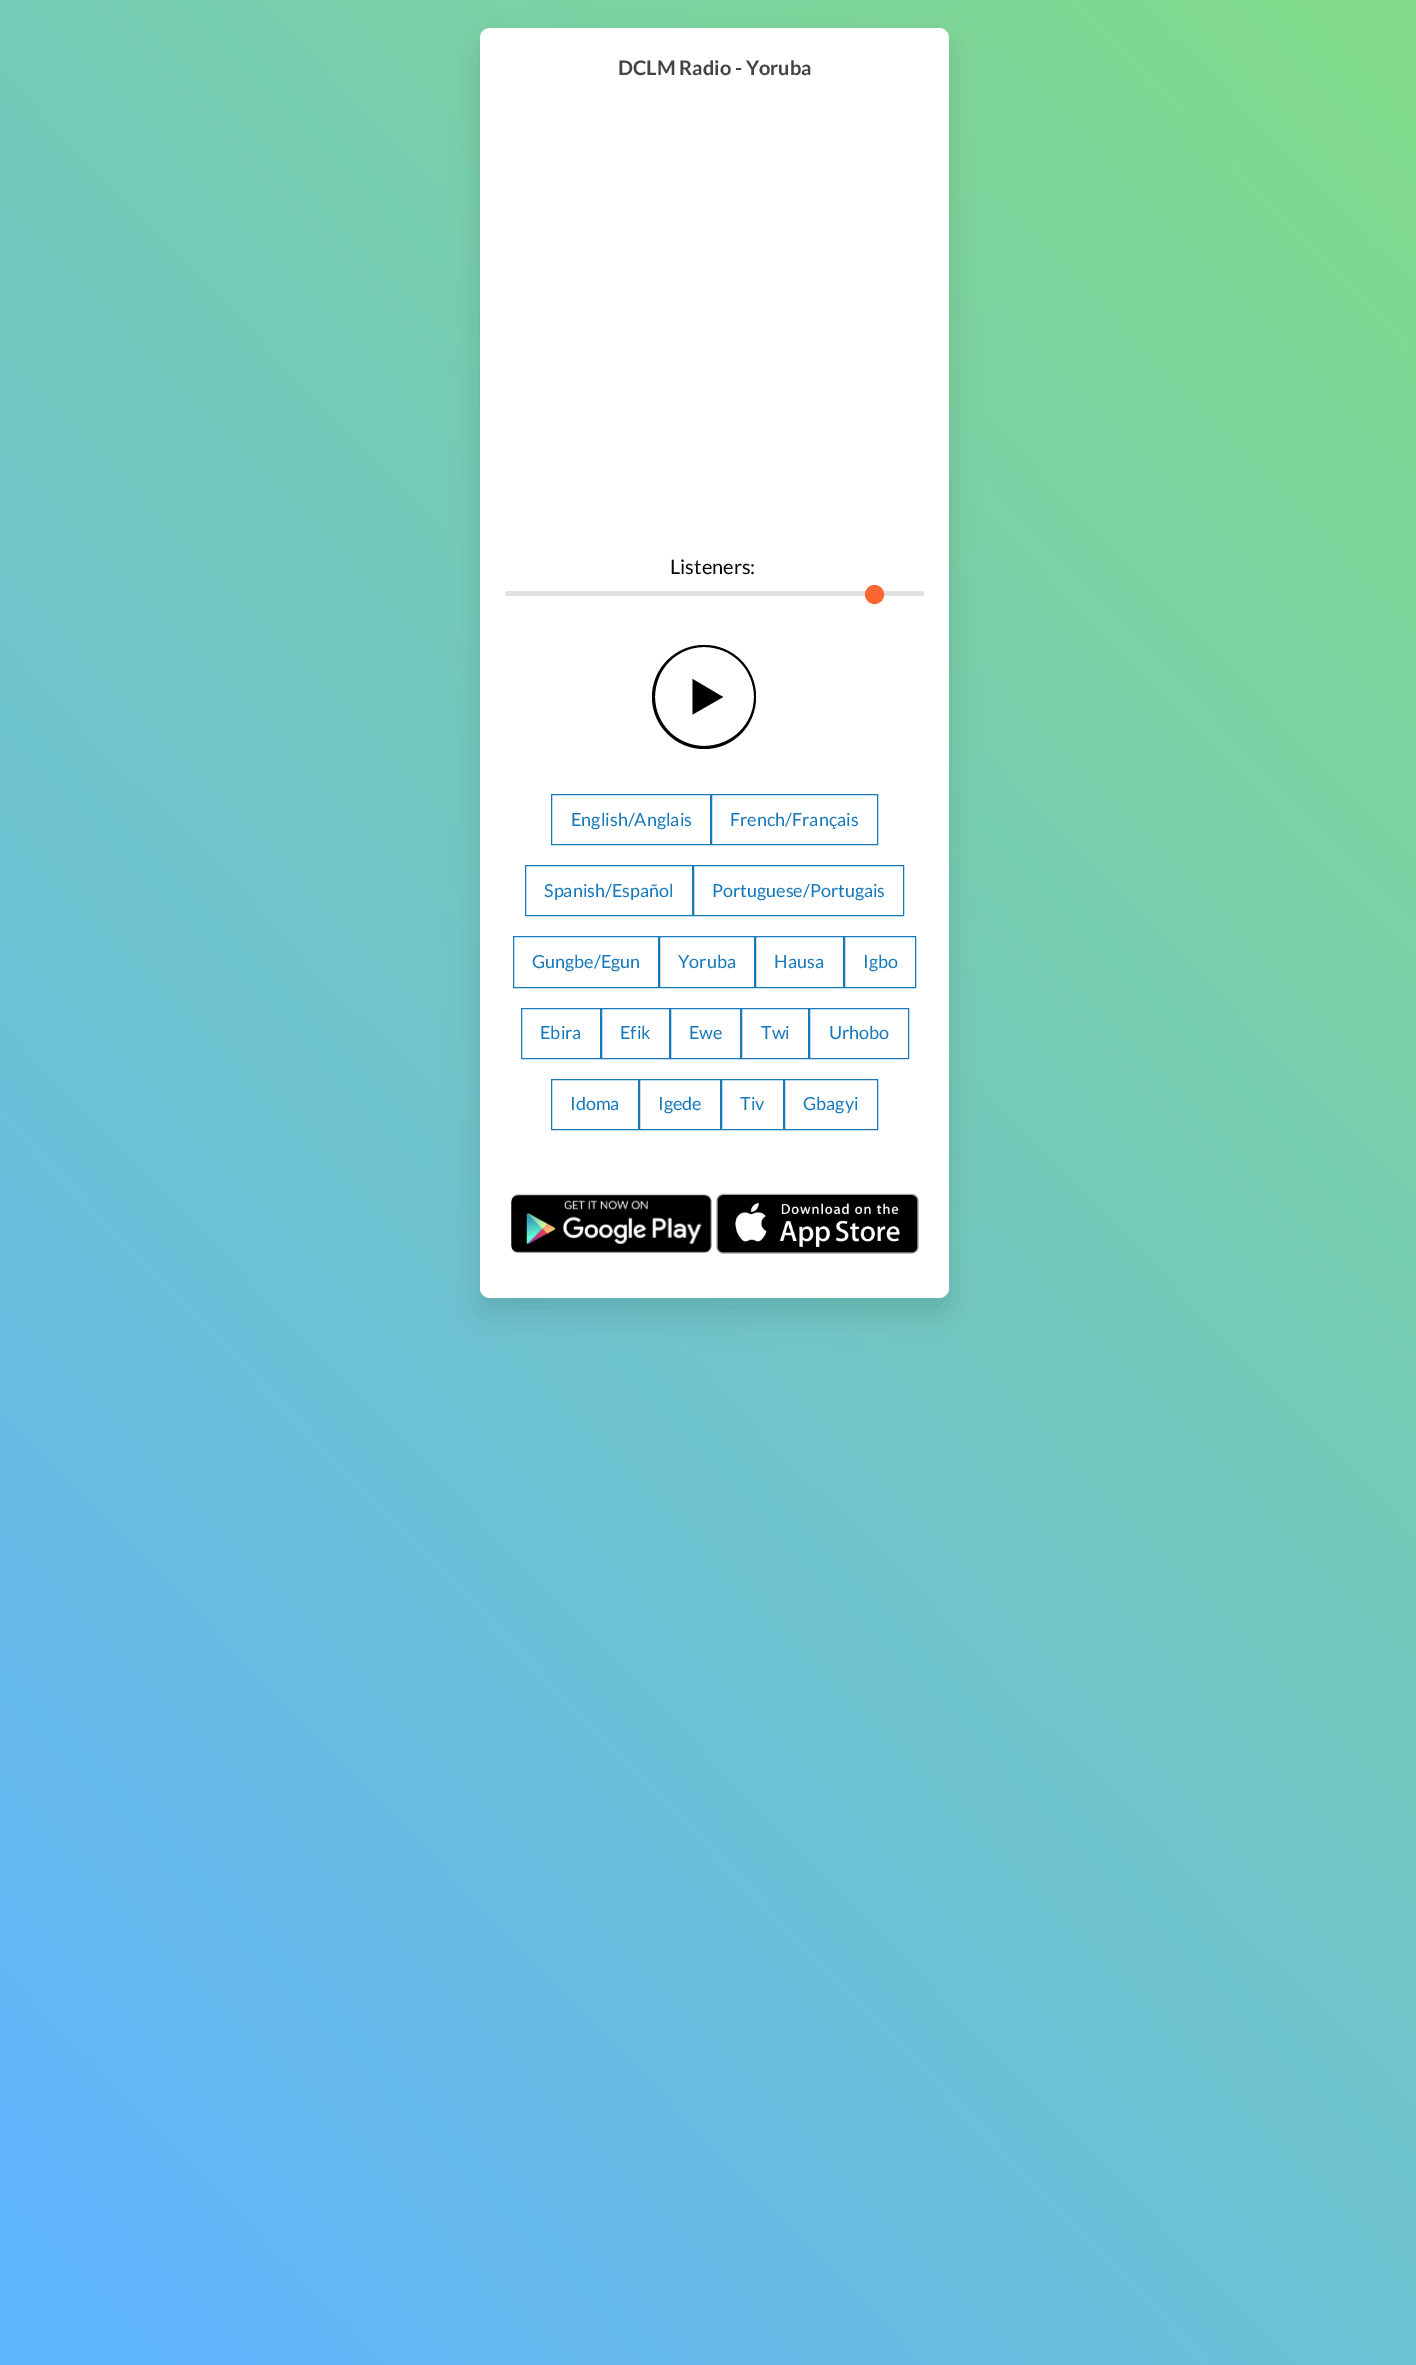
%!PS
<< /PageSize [1416 2365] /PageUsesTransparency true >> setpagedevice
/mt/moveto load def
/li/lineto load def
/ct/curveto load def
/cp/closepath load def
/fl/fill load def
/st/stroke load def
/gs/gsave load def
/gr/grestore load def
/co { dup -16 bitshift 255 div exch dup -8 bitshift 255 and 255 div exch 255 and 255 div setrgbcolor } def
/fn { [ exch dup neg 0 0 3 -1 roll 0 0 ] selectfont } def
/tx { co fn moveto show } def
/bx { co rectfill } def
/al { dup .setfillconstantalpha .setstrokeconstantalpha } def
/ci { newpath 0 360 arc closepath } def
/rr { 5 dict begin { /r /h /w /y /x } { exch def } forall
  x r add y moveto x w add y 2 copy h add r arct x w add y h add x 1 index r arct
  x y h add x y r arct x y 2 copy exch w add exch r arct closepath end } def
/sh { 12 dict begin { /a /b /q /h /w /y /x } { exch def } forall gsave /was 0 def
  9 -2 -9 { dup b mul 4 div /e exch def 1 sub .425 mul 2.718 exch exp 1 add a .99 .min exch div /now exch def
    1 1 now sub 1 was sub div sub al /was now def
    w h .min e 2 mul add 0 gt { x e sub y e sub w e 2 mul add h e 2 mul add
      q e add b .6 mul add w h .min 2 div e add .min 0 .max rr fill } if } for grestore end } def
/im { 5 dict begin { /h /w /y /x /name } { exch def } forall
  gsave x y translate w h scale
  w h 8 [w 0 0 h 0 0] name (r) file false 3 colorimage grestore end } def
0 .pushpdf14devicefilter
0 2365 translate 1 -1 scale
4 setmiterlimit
0 0 1416 2365 16#FFFFFF bx
gs 0 0 mt 1416 0 li 1416 2365 li 0 2365 li cp clip newpath
<< /ShadingType 2 /ColorSpace /DeviceRGB /Coords [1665 258 -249 2107] /Extend [true true] /Function << /FunctionType 3 /Domain [0 1] /Functions [<< /FunctionType 2 /Domain [0 1] /C0 [.51 .863 .533] /C1 [.384 .71 .984] /N 1 >> << /FunctionType 2 /Domain [0 1] /C0 [.384 .71 .984] /C1 [.357 .714 1] /N 1 >>] /Bounds [.94] /Encode [0 1 0 1] >> >> shfill gr
16#000000 co
480 43 469 1270 10 15 .12 sh
16#FFFFFF co
480 28 469 1270 10 rr fl
16#E1E1E1 co
505 591 419 5 2.5 rr fl
16#FA6733 co
874.5 594.5 9 ci gs fl gr
st
16#000000 co
723 697 mt 692.5 714.5 li 692.5 679 li cp fl
704 645 mt 676 645 652 668 652 697 ct 652 726 676 749 704 749 ct 733 749 756 726 756 697 ct 756 668 733 645 704 645 ct cp 704 746 mt 677 746 655 724 655 697 ct 655 669 677 647 704 647 ct 732 647 754 669 754 697 ct 754 724 732 746 704 746 ct cp fl
16#1779BA co
551.5 794.5 159 50 rectstroke
711.5 794.5 166 50 rectstroke
525.5 865.5 167 50 rectstroke
693.5 865.5 210 50 rectstroke
513.5 936.5 145 51 rectstroke
659.5 936.5 95 51 rectstroke
755.5 936.5 88 51 rectstroke
844.5 936.5 71 51 rectstroke
521.5 1008.5 79 50 rectstroke
601.5 1008.5 68 50 rectstroke
670.5 1008.5 70 50 rectstroke
741.5 1008.5 67 50 rectstroke
809.5 1008.5 99 50 rectstroke
551.5 1079.5 87 50 rectstroke
639.5 1079.5 81 50 rectstroke
721.5 1079.5 62 50 rectstroke
784.5 1079.5 93 50 rectstroke
(media/1.raw) 511 1194 201 59 im
(media/2.raw) 716 1193 203 61 im
(DCLM Radio - Yoruba) 618 75 /Lato-Bold 20 16#414344 tx
(Listeners:) 670 574 /Lato-Regular 20 16#0A0A0A tx
(English/Anglais) 571 826 /Lato-Regular 18 16#1779BA tx
(French/Français) 730 826 /Lato-Regular 18 16#1779BA tx
(Spanish/Español) 544 897 /Lato-Regular 18 16#1779BA tx
(Portuguese/Portugais) 712 897 /Lato-Regular 18 16#1779BA tx
(Gungbe/Egun) 532 968 /Lato-Regular 18 16#1779BA tx
(Yoruba) 678 968 /Lato-Regular 18 16#1779BA tx
(Hausa) 774 968 /Lato-Regular 18 16#1779BA tx
(Igbo) 863 968 /Lato-Regular 18 16#1779BA tx
(Ebira) 540 1039 /Lato-Regular 18 16#1779BA tx
(Efik) 620 1039 /Lato-Regular 18 16#1779BA tx
(Ewe) 689 1039 /Lato-Regular 18 16#1779BA tx
(Twi) 761 1039 /Lato-Regular 18 16#1779BA tx
(Urhobo) 829 1039 /Lato-Regular 18 16#1779BA tx
(Idoma) 570 1110 /Lato-Regular 18 16#1779BA tx
(Igede) 658 1110 /Lato-Regular 18 16#1779BA tx
(Tiv) 740 1110 /Lato-Regular 18 16#1779BA tx
(Gbagyi) 803 1110 /Lato-Regular 18 16#1779BA tx
.poppdf14devicefilter showpage
